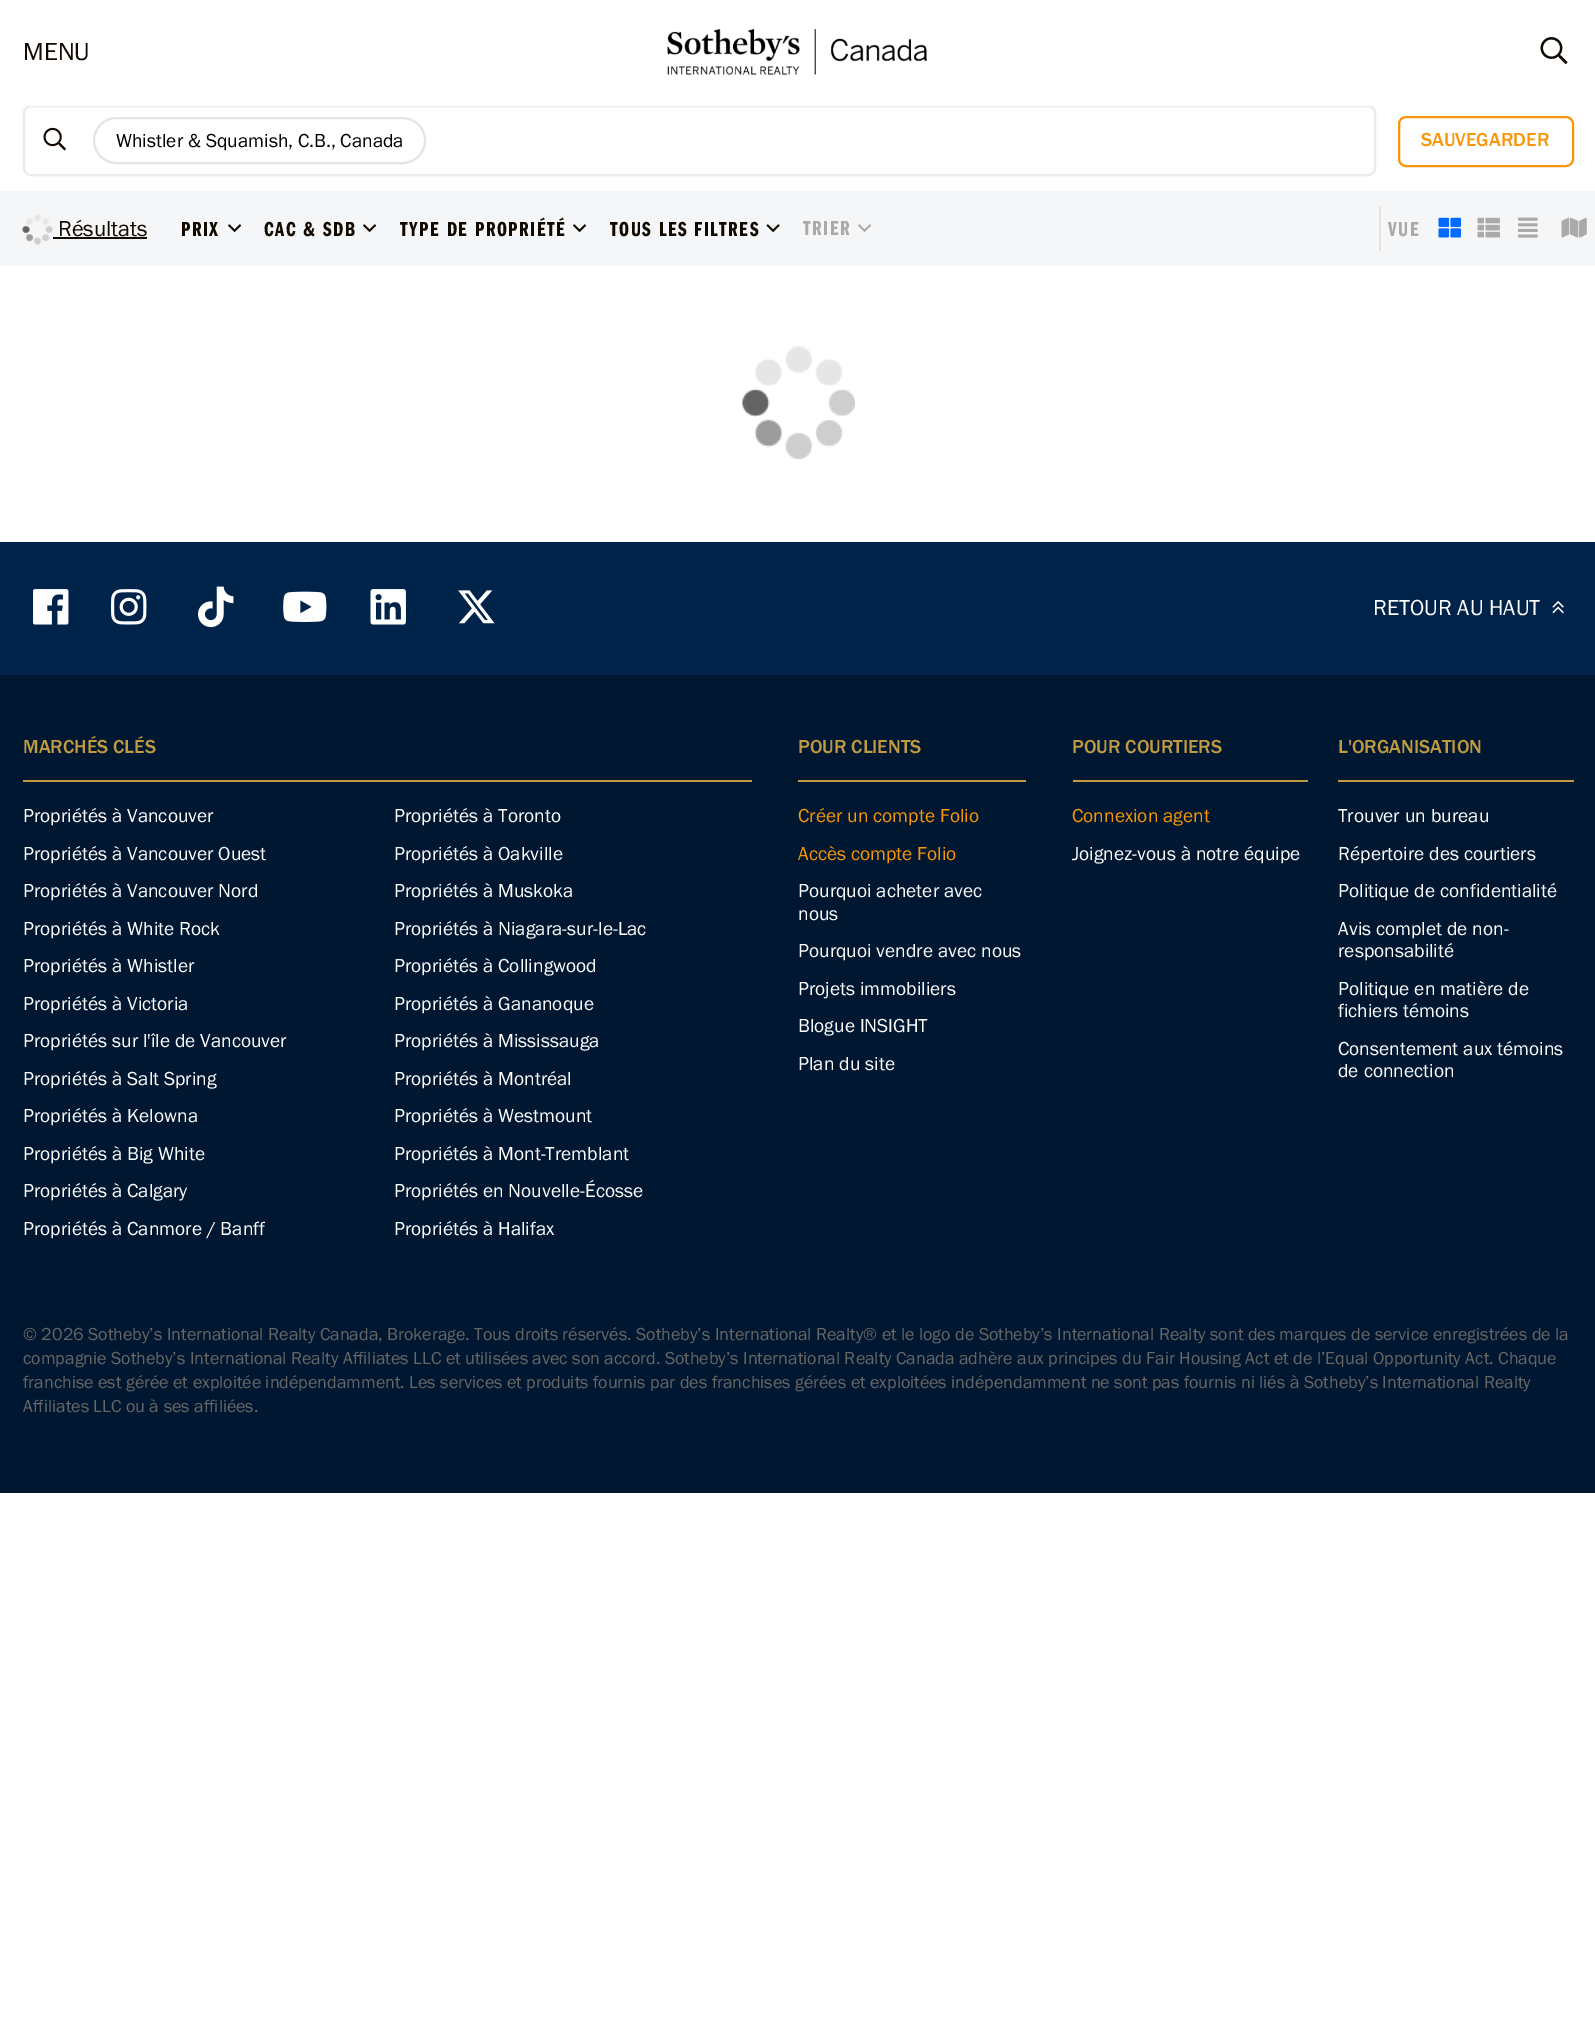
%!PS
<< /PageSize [1595 2043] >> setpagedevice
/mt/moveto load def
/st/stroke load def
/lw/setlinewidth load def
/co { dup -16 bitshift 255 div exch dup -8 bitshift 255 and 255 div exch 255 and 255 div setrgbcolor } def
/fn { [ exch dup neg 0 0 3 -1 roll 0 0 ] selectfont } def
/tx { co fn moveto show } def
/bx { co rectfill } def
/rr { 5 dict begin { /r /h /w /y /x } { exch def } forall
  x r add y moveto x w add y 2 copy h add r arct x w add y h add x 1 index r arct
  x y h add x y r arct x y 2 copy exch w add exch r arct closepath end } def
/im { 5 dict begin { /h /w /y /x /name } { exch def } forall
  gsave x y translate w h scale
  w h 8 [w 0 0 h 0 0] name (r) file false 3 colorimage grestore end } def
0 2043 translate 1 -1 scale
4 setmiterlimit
0 0 1595 2043 16#FFFFFF bx
16#EBEBEB co
2 lw
24 106 1351 69 7 rr st
27 105 1345 1 16#FFFFFF bx
(media/1.raw) 667 29 260 46 im
(media/2.raw) 1540 37 28 27 im
(media/3.raw) 43 127 23 24 im
16#E4E4E4 co
94 118 331 45 22.5 rr st
16#F89609 co
1399 117 174 49 7 rr st
0 191 1595 75 16#F5F6F7 bx
(media/4.raw) 22 214 31 31 im
53 237 94 2 16#120900 bx
(media/5.raw) 228 224 14 8 im
(media/5.raw) 363 224 14 8 im
(media/5.raw) 573 224 14 8 im
(media/6.raw) 766 224 14 8 im
(media/7.raw) 858 224 13 8 im
1379 206 2 45 16#E4E4E4 bx
(media/8.raw) 1438 217 23 21 im
(media/9.raw) 1477 217 23 21 im
(media/10.raw) 1518 217 20 21 im
(media/11.raw) 1561 217 26 21 im
(media/12.raw) 742 346 113 113 im
0 542 1595 133 16#002349 bx
(media/13.raw) 33 589 36 36 im
(media/14.raw) 111 589 36 36 im
(media/15.raw) 198 586 36 42 im
(media/16.raw) 283 591 44 31 im
(media/17.raw) 370 589 36 36 im
(media/18.raw) 458 590 37 34 im
(media/19.raw) 1552 601 12 13 im
0 675 1595 818 16#001731 bx
23 780 729 2 16#C29B40 bx
798 780 228 2 16#C29B40 bx
1073 780 235 2 16#C29B40 bx
1338 780 236 2 16#C29B40 bx
(MENU) 23 60 /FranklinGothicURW-Regular 25.5 16#120900 tx
(Whistler & Squamish, C.B., Canada) 116 147 /FranklinGothicURW-Regular 19.5 16#000000 tx
(SAUVEGARDER) 1421 146 /FranklinGothicURW-Medium 19.5 16#F89609 tx
(Résultats) 58 236 /FranklinGothicURW-Regular 22.5 16#120900 tx
/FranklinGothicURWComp-SemiBold 21 fn
181 236 mt 1.5 0 (PRIX) ashow
264 236 mt 1.5 0 (CAC & SDB) ashow
400 236 mt 1.5 0 (TYPE DE PROPRIÉTÉ) ashow
610 236 mt 1.5 0 (TOUS LES FILTRES) ashow
16#AAAAAA co
803 235 mt 1.5 0 (TRIER) ashow
1388 236 mt 1.5 0 (VUE) ashow
(RETOUR AU HAUT) 1373 615 /FranklinGothicURW-Regular 22.5 16#FFFFFF tx
(MARCHÉS CLÉS) 23 753 /FranklinGothicURW-Medium 19.5 16#C29B40 tx
(Propriétés à Vancouver) 23 822 /FranklinGothicURW-Regular 19.5 16#FFFFFF tx
(Propriétés à Vancouver Ouest) 23 860 /FranklinGothicURW-Regular 19.5 16#FFFFFF tx
(Propriétés à Vancouver Nord) 23 897 /FranklinGothicURW-Regular 19.5 16#FFFFFF tx
(Propriétés à White Rock) 23 935 /FranklinGothicURW-Regular 19.5 16#FFFFFF tx
(Propriétés à Whistler) 23 972 /FranklinGothicURW-Regular 19.5 16#FFFFFF tx
(Propriétés à Victoria) 23 1010 /FranklinGothicURW-Regular 19.5 16#FFFFFF tx
(Propriétés sur l'île de Vancouver) 23 1047 /FranklinGothicURW-Regular 19.5 16#FFFFFF tx
(Propriétés à Salt Spring) 23 1085 /FranklinGothicURW-Regular 19.5 16#FFFFFF tx
(Propriétés à Kelowna) 23 1122 /FranklinGothicURW-Regular 19.5 16#FFFFFF tx
(Propriétés à Big White) 23 1160 /FranklinGothicURW-Regular 19.5 16#FFFFFF tx
(Propriétés à Calgary) 23 1197 /FranklinGothicURW-Regular 19.5 16#FFFFFF tx
(Propriétés à Canmore / Banff) 23 1235 /FranklinGothicURW-Regular 19.5 16#FFFFFF tx
(Propriétés à Toronto) 394 822 /FranklinGothicURW-Regular 19.5 16#FFFFFF tx
(Propriétés à Oakville) 394 860 /FranklinGothicURW-Regular 19.5 16#FFFFFF tx
(Propriétés à Muskoka) 394 897 /FranklinGothicURW-Regular 19.5 16#FFFFFF tx
(Propriétés à Niagara-sur-le-Lac) 394 935 /FranklinGothicURW-Regular 19.5 16#FFFFFF tx
(Propriétés à Collingwood) 394 972 /FranklinGothicURW-Regular 19.5 16#FFFFFF tx
(Propriétés à Gananoque) 394 1010 /FranklinGothicURW-Regular 19.5 16#FFFFFF tx
(Propriétés à Mississauga) 394 1047 /FranklinGothicURW-Regular 19.5 16#FFFFFF tx
(Propriétés à Montréal) 394 1085 /FranklinGothicURW-Regular 19.5 16#FFFFFF tx
(Propriétés à Westmount) 394 1122 /FranklinGothicURW-Regular 19.5 16#FFFFFF tx
(Propriétés à Mont-Tremblant) 394 1160 /FranklinGothicURW-Regular 19.5 16#FFFFFF tx
(Propriétés en Nouvelle-Écosse) 394 1197 /FranklinGothicURW-Regular 19.5 16#FFFFFF tx
(Propriétés à Halifax) 394 1235 /FranklinGothicURW-Regular 19.5 16#FFFFFF tx
(POUR CLIENTS) 798 753 /FranklinGothicURW-Medium 19.5 16#C29B40 tx
(Créer un compte Folio) 798 822 /FranklinGothicURW-Regular 19.5 16#F89609 tx
(Accès compte Folio) 798 860 /FranklinGothicURW-Regular 19.5 16#F89609 tx
(Pourquoi acheter avec) 798 897 /FranklinGothicURW-Regular 19.5 16#FFFFFF tx
(nous) 798 920 /FranklinGothicURW-Regular 19.5 16#FFFFFF tx
(Pourquoi vendre avec nous) 798 957 /FranklinGothicURW-Regular 19.5 16#FFFFFF tx
(Projets immobiliers) 798 995 /FranklinGothicURW-Regular 19.5 16#FFFFFF tx
(Blogue INSIGHT) 798 1032 /FranklinGothicURW-Regular 19.5 16#FFFFFF tx
(Plan du site) 798 1070 /FranklinGothicURW-Regular 19.5 16#FFFFFF tx
(POUR COURTIERS) 1072 753 /FranklinGothicURW-Medium 19.5 16#C29B40 tx
(Connexion agent) 1072 822 /FranklinGothicURW-Regular 19.5 16#F89609 tx
(Joignez-vous à notre équipe) 1072 860 /FranklinGothicURW-Regular 19.5 16#FFFFFF tx
(L'ORGANISATION) 1338 753 /FranklinGothicURW-Medium 19.5 16#C29B40 tx
(Trouver un bureau) 1338 822 /FranklinGothicURW-Regular 19.5 16#FFFFFF tx
(Répertoire des courtiers) 1338 860 /FranklinGothicURW-Regular 19.5 16#FFFFFF tx
(Politique de confidentialité) 1338 897 /FranklinGothicURW-Regular 19.5 16#FFFFFF tx
(Avis complet de non-) 1338 935 /FranklinGothicURW-Regular 19.5 16#FFFFFF tx
(responsabilité) 1338 957 /FranklinGothicURW-Regular 19.5 16#FFFFFF tx
(Politique en matière de) 1338 995 /FranklinGothicURW-Regular 19.5 16#FFFFFF tx
(fichiers témoins) 1338 1017 /FranklinGothicURW-Regular 19.5 16#FFFFFF tx
(Consentement aux témoins) 1338 1055 /FranklinGothicURW-Regular 19.5 16#FFFFFF tx
(de connection) 1338 1077 /FranklinGothicURW-Regular 19.5 16#FFFFFF tx
(© 2026 Sotheby’s International Realty Canada, Brokerage. Tous droits réservés. Sotheby’s International Realty® et le logo de Sotheby’s International Realty sont des marques de service enregistrées de la) 23 1340 /FranklinGothicURW-Regular 18 16#666666 tx
(compagnie Sotheby’s International Realty Affiliates LLC et utilisées avec son accord. Sotheby’s International Realty Canada adhère aux principes du Fair Housing Act et de l’Equal Opportunity Act. Chaque) 23 1364 /FranklinGothicURW-Regular 18 16#666666 tx
(franchise est gérée et exploitée indépendamment. Les services et produits fournis par des franchises gérées et exploitées indépendamment ne sont pas fournis ni liés à Sotheby’s International Realty) 23 1388 /FranklinGothicURW-Regular 18 16#666666 tx
(Affiliates LLC ou à ses affiliées.) 23 1412 /FranklinGothicURW-Regular 18 16#666666 tx
showpage
